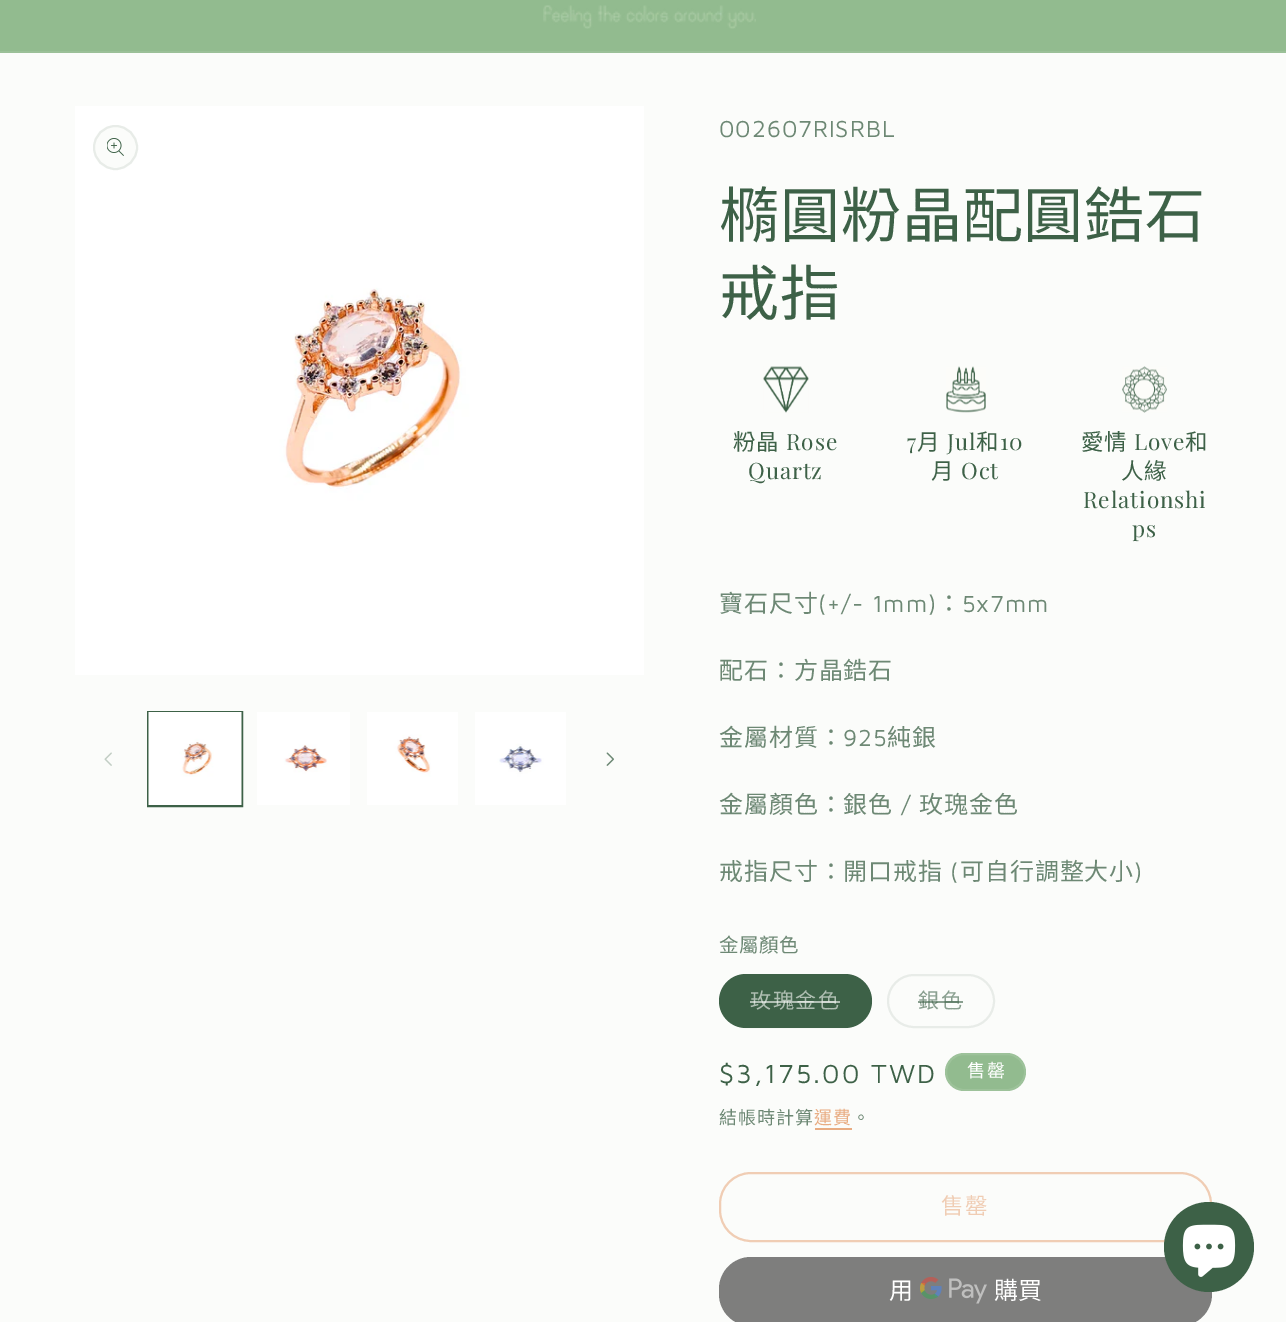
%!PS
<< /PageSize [1286 1322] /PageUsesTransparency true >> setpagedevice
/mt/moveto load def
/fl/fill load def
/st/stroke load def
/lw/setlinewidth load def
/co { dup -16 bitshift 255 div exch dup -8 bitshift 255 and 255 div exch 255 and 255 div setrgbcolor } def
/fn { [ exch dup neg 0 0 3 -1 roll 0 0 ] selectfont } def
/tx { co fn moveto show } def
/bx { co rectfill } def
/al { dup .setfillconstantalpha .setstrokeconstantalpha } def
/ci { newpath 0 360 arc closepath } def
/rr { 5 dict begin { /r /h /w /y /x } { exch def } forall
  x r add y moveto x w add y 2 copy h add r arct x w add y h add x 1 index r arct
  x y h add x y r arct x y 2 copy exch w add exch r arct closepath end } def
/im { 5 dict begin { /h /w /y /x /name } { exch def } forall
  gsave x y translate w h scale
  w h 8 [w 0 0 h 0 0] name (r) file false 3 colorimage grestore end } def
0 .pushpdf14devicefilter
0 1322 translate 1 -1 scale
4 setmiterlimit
0 0 1286 1322 16#FBFCFA bx
0 0 1286 51 16#92BB8F bx
0 51 1286 2 16#9BC098 bx
(media/1.raw) 543 5 213 24 im
(media/2.raw) 75 106 569 569 im
16#FBFCFA co
115.5 147.5 22.5 ci fl
0.1 al
16#3D6147 co
2 lw
115.5 147.5 21.5 ci st
1 al
(media/3.raw) 107 138 17 18 im
(media/4.raw) 104 752 8 14 im
148 712 94 94 rectstroke
(media/5.raw) 148 712 94 93 im
(media/6.raw) 257 712 93 93 im
(media/7.raw) 367 712 91 93 im
(media/8.raw) 475 712 91 93 im
(media/9.raw) 606 752 8 14 im
(media/10.raw) 763 366 46 47 im
(media/11.raw) 946 366 40 47 im
(media/12.raw) 1122 366 45 47 im
719 974 153 54 27 rr fl
0.1 al
720 975 151 52 26 rr st
1 al
16#E8ECE8 co
888 975 106 52 26 rr st
16#92BB8F co
945 1053 81 38 19 rr fl
0.1 al
16#FFFFFF co
946 1054 79 36 18 rr st
1 al
815 1128 37 2 16#E8AC82 bx
16#F0CDB4 co
720 1173 491 68 31 rr st
16#7E7E7D co
719 1257 493 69 32 rr fl
(media/13.raw) 920 1277 67 27 im
16#3D6147 co
1209 1247 45 ci fl
(media/14.raw) 1182 1224 54 53 im
/MavenPro-Regular 24 fn
16#6D8874 co
719 137 mt .9 0 (002607RISRBL) ashow
/NotoSansCJKTC-Regular 60 fn
16#3D6147 co
719 237 mt .9 0 (橢圓粉晶配圓鋯石) ashow
719 315 mt .9 0 (戒指) ashow
/NotoSansCJKTC-Regular 22.5 fn
733 450 mt .9 0 (粉晶) ashow
/PlayfairDisplay-Regular 22.5 fn
786 450 mt .9 0 (Rose) ashow
748 479 mt .9 0 (Quartz) ashow
907 450 mt .9 0 (7) ashow
/NotoSansCJKTC-Regular 22.5 fn
917 450 mt .9 0 (月) ashow
/PlayfairDisplay-Regular 22.5 fn
947 450 mt .9 0 (Jul) ashow
/NotoSansCJKTC-Regular 22.5 fn
976 450 mt .9 0 (和) ashow
/PlayfairDisplay-Regular 22.5 fn
1000 450 mt .9 0 (10) ashow
/NotoSansCJKTC-Regular 22.5 fn
931 479 mt .9 0 (月) ashow
/PlayfairDisplay-Regular 22.5 fn
961 479 mt .9 0 (Oct) ashow
/NotoSansCJKTC-Regular 22.5 fn
1081 450 mt .9 0 (愛情) ashow
/PlayfairDisplay-Regular 22.5 fn
1134 450 mt .9 0 (Love) ashow
/NotoSansCJKTC-Regular 22.5 fn
1185 450 mt .9 0 (和) ashow
1121 479 mt .9 0 (人緣) ashow
/PlayfairDisplay-Regular 22.5 fn
1083 508 mt .9 0 (Relationshi) ashow
1132 537 mt .9 0 (ps) ashow
/NotoSansCJKTC-Regular 24 fn
16#6D8874 co
719 612 mt .9 0 (寶石尺寸) ashow
/MavenPro-Regular 24 fn
818 612 mt .9 0 (\(+/- 1mm\)) ashow
/NotoSansCJKTC-Regular 24 fn
937 612 mt .9 0 (：) ashow
/MavenPro-Regular 24 fn
962 612 mt .9 0 (5x7mm) ashow
/NotoSansCJKTC-Regular 24 fn
719 679 mt .9 0 (配石：方晶鋯石) ashow
719 746 mt .9 0 (金屬材質：) ashow
/MavenPro-Regular 24 fn
843 746 mt .9 0 (925) ashow
/NotoSansCJKTC-Regular 24 fn
887 746 mt .9 0 (純銀) ashow
719 813 mt .9 0 (金屬顏色：銀色) ashow
/MavenPro-Regular 24 fn
901 813 mt .9 0 (/) ashow
/NotoSansCJKTC-Regular 24 fn
919 813 mt .9 0 (玫瑰金色) ashow
719 880 mt .9 0 (戒指尺寸：開口戒指) ashow
/MavenPro-Regular 24 fn
950 880 mt .9 0 (\() ashow
/NotoSansCJKTC-Regular 24 fn
960 880 mt .9 0 (可自行調整大小) ashow
/MavenPro-Regular 24 fn
1134 880 mt .9 0 (\)) ashow
/NotoSansCJKTC-Regular 19.5 fn
719 952 mt .5 0 (金屬顏色) ashow
/NotoSansCJKTC-Regular 21 fn
16#AFBEB2 co
750 1008 mt 1.5 0 (玫瑰金色) ashow
0.6 al
750 1001 90 2 16#FBFCFA bx
1 al
16#899F8F co
918 1008 mt 1.5 0 (銀色) ashow
0.6 al
918 1001 45 2 16#3D6147 bx
/MavenPro-Regular 27 fn
1 al
719 1083 mt 2 0 ($3,175.00 TWD) ashow
/NotoSansCJKTC-Regular 18 fn
16#FFFFFF co
967 1077 mt 1.5 0 (售罄) ashow
16#6D8874 co
719 1124 mt 1 0 (結帳時計算) ashow
16#E8AC82 co
814 1124 mt 1 0 (運費) ashow
16#6D8874 co
852 1124 mt 1 0 (。) ashow
/NotoSansCJKTC-Regular 22.5 fn
16#F0CDB4 co
941 1214 mt 1.5 0 (售罄) ashow
(用) 889 1299 /NotoSansCJKTC-Regular 24 16#FFFFFF tx
(購買) 994 1299 /NotoSansCJKTC-Regular 24 16#FFFFFF tx
.poppdf14devicefilter showpage
